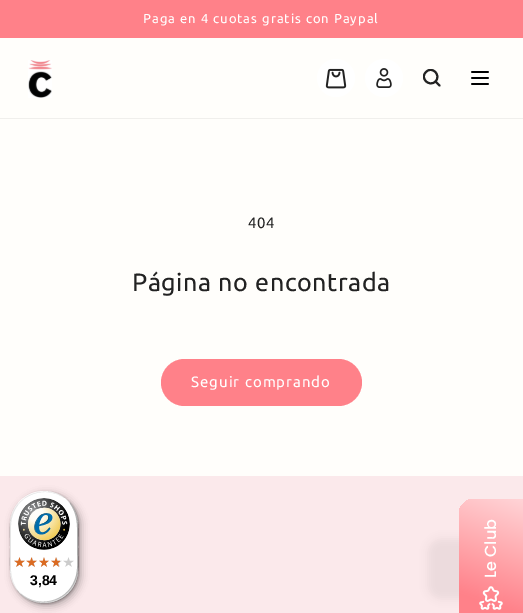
%!PS
<< /PageSize [523 613] /PageUsesTransparency true >> setpagedevice
/mt/moveto load def
/li/lineto load def
/ct/curveto load def
/cp/closepath load def
/fl/fill load def
/st/stroke load def
/gs/gsave load def
/gr/grestore load def
/lw/setlinewidth load def
/co { dup -16 bitshift 255 div exch dup -8 bitshift 255 and 255 div exch 255 and 255 div setrgbcolor } def
/fn { [ exch dup neg 0 0 3 -1 roll 0 0 ] selectfont } def
/tx { co fn moveto show } def
/bx { co rectfill } def
/al { dup .setfillconstantalpha .setstrokeconstantalpha } def
/ci { newpath 0 360 arc closepath } def
/rr { 5 dict begin { /r /h /w /y /x } { exch def } forall
  x r add y moveto x w add y 2 copy h add r arct x w add y h add x 1 index r arct
  x y h add x y r arct x y 2 copy exch w add exch r arct closepath end } def
/sh { 12 dict begin { /a /b /q /h /w /y /x } { exch def } forall gsave /was 0 def
  9 -2 -9 { dup b mul 4 div /e exch def 1 sub .425 mul 2.718 exch exp 1 add a .99 .min exch div /now exch def
    1 1 now sub 1 was sub div sub al /was now def
    w h .min e 2 mul add 0 gt { x e sub y e sub w e 2 mul add h e 2 mul add
      q e add b .6 mul add w h .min 2 div e add .min 0 .max rr fill } if } for grestore end } def
/im { 5 dict begin { /h /w /y /x /name } { exch def } forall
  gsave x y translate w h scale
  w h 8 [w 0 0 h 0 0] name (r) file false 3 colorimage grestore end } def
0 .pushpdf14devicefilter
0 613 translate 1 -1 scale
4 setmiterlimit
0 0 523 613 16#FFFEFB bx
0 0 523 38 16#FF8189 bx
0 118 523 1 16#F0EFEC bx
(media/1.raw) 28 60 24 38 im
16#FFFFFF co
336 78 19 ci fl
(media/2.raw) 325 68 22 21 im
384 78 19 ci fl
(media/3.raw) 376 68 16 20 im
gs
423 69 19 18 rectclip
16#222222 co
2 lw
1 setlinecap
1 setlinejoin
435.5 81.5 mt 429 87.5 419.5 78 426 72 ct 432 65.5 441.5 75 435.5 81.5 ct cp st
gr
16#222222 co
2 lw
1 setlinecap
1 setlinejoin
435.5 81.5 mt 439.5 85.5 li st
(media/4.raw) 471 71 18 14 im
16#FF8189 co
161 359 201 47 23.5 rr fl
0 476 523 137 16#FBE9EB bx
16#000000 co
13 494 68 112 34 4 .15 sh
11 492 68 112 34 1 .15 sh
0.1 al
45 492 mt 53 492 61 495 67 500 ct 50 485 22 491 13 512 ct 8 522 10 536 10 547 ct 10 562 7 579 19 592 ct 14 586 11 578 11 570 ct 11 526 li 11 507 26 492 45 492 ct cp fl
0.2 al
21 594 mt 38 609 66 603 75 582 ct 80 572 78 558 78 547 ct 78 532 81 515 69 502 ct 79 515 77 531 77 546 ct 77 557 79 571 74 581 ct 66 602 38 608 21 594 ct cp fl
16#323232 co
17 590 mt 24 598 33 603 44 603 ct 63 603 78 588 78 569 ct 78 525 li 78 514 73 505 65 498 ct 72 505 77 514 77 524 ct 77 568 li 77 587 62 602 43 602 ct 33 602 24 597 17 590 ct cp fl
0.3 al
16#FFFFFF co
10 568 mt 10 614 78 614 78 568 ct 78 587 62 602 44 602 ct 25 602 10 587 10 568 ct cp fl
1 al
16#444444 co
428 539 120 60 13 4 .08 sh
gs 459 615 mt 459 514 li 459 506 466 499 474 499 ct 523 499 li 523 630 li 474 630 li 466 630 459 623 459 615 ct cp clip newpath
<< /ShadingType 2 /ColorSpace /DeviceRGB /Coords [467 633 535 442] /Extend [true true] /Function << /FunctionType 3 /Domain [0 1] /Functions [<< /FunctionType 2 /Domain [0 1] /C0 [1 .506 .537] /C1 [1 .506 .537] /N 1 >> << /FunctionType 2 /Domain [0 1] /C0 [1 .506 .537] /C1 [1 1 1] /N 1 >>] /Bounds [.17] /Encode [0 1 0 1] >> >> shfill gr
(media/5.raw) 479 586 24 24 im
16#000000 co
13 494 68 112 34 4 .15 sh
11 492 68 112 34 1 .15 sh
16#FFFFFF co
10 491 68 112 34 rr fl
0.1 al
16#000000 co
45 492 mt 53 492 61 495 67 500 ct 50 485 22 491 13 512 ct 8 522 10 536 10 547 ct 10 562 7 579 19 592 ct 14 586 11 578 11 570 ct 11 526 li 11 507 26 492 45 492 ct cp fl
0.2 al
21 594 mt 38 609 66 603 75 582 ct 80 572 78 558 78 547 ct 78 532 81 515 69 502 ct 79 515 77 531 77 546 ct 77 557 79 571 74 581 ct 66 602 38 608 21 594 ct cp fl
16#323232 co
17 590 mt 24 598 33 603 44 603 ct 63 603 78 588 78 569 ct 78 525 li 78 514 73 505 65 498 ct 72 505 77 514 77 524 ct 77 568 li 77 587 62 602 43 602 ct 33 602 24 597 17 590 ct cp fl
0.3 al
16#FFFFFF co
10 568 mt 10 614 78 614 78 568 ct 78 587 62 602 44 602 ct 25 602 10 587 10 568 ct cp fl
1 al
(media/6.raw) 18 498 52 52 im
(media/7.raw) 14 557 11 10 im
(media/8.raw) 27 557 10 10 im
(media/9.raw) 39 557 10 10 im
(media/10.raw) 51 557 11 10 im
(media/10.raw) 63 557 11 10 im
(media/11.raw) 14 557 11 10 im
(media/12.raw) 26 557 11 10 im
(media/13.raw) 39 557 10 10 im
(media/14.raw) 51 557 9 10 im
/Ubuntu-Regular 13 fn
143 23 mt 1 0 (Paga en 4 cuotas gratis con Paypal) ashow
/Ubuntu-Regular 15 fn
16#222222 co
248 228 mt .6 0 (404) ashow
/Ubuntu-Regular 25 fn
132 291 mt .6 0 (Página no encontrada) ashow
/Ubuntu-Regular 15 fn
16#FFFFFF co
191 387 mt 1 0 (Seguir comprando) ashow
/Poppins-Medium 16 fn
gs 496 578 translate -90 rotate 0 0 mt (Le Club) show gr
(3,84) 30 585 /LiberationSans-Bold 14 16#000000 tx
.poppdf14devicefilter showpage
